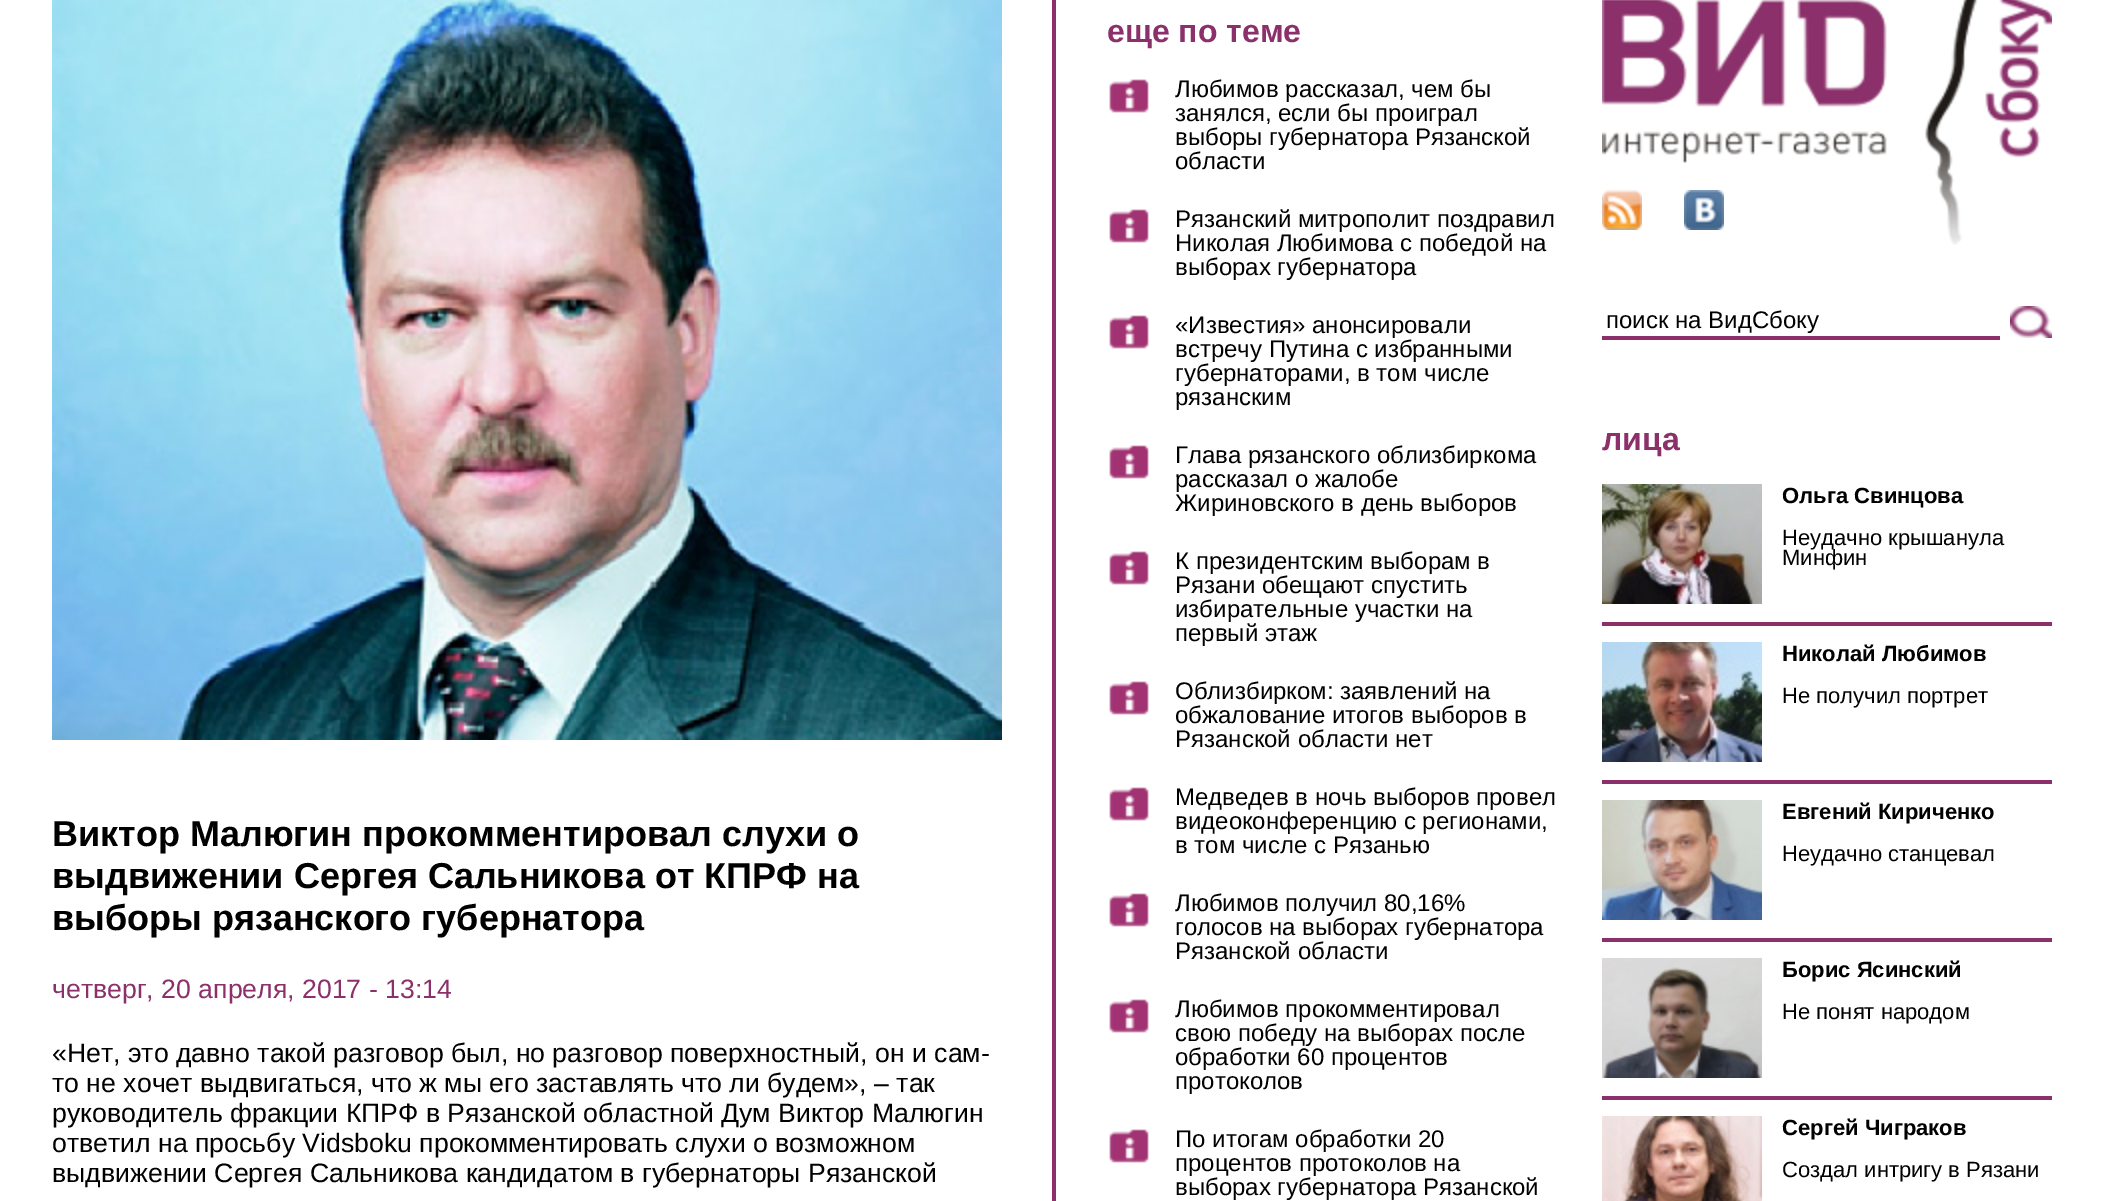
%!PS
<< /PageSize [2104 1201] >> setpagedevice
/co { dup -16 bitshift 255 div exch dup -8 bitshift 255 and 255 div exch 255 and 255 div setrgbcolor } def
/fn { [ exch dup neg 0 0 3 -1 roll 0 0 ] selectfont } def
/tx { co fn moveto show } def
/bx { co rectfill } def
/im { 5 dict begin { /h /w /y /x /name } { exch def } forall
  gsave x y translate w h scale
  w h 8 [w 0 0 h 0 0] name (r) file false 3 colorimage grestore end } def
0 1201 translate 1 -1 scale
4 setmiterlimit
0 0 2104 1201 16#FFFFFF bx
(media/1.raw) 52 0 950 740 im
1052 0 4 1201 16#8B306A bx
(media/2.raw) 1109 79 40 34 im
(media/2.raw) 1109 209 40 34 im
(media/2.raw) 1109 315 40 34 im
(media/2.raw) 1109 445 40 34 im
(media/2.raw) 1109 551 40 34 im
(media/2.raw) 1109 681 40 34 im
(media/2.raw) 1109 787 40 34 im
(media/2.raw) 1109 893 40 34 im
(media/2.raw) 1109 999 40 34 im
(media/2.raw) 1109 1129 40 34 im
(media/3.raw) 1602 0 450 245 im
(media/4.raw) 1602 190 40 40 im
(media/5.raw) 1684 190 40 40 im
1602 336 398 4 16#8B306A bx
(media/6.raw) 2010 306 42 32 im
1602 622 450 4 16#8B306A bx
(media/7.raw) 1602 484 160 120 im
1602 780 450 4 16#8B306A bx
(media/8.raw) 1602 642 160 120 im
1602 938 450 4 16#8B306A bx
(media/9.raw) 1602 800 160 120 im
1602 1096 450 4 16#8B306A bx
(media/10.raw) 1602 958 160 120 im
(media/11.raw) 1602 1116 160 85 im
(Виктор Малюгин прокомментировал слухи о) 52 846 /LiberationSans-Bold 36 16#000000 tx
(выдвижении Сергея Сальникова от КПРФ на) 52 888 /LiberationSans-Bold 36 16#000000 tx
(выборы рязанского губернатора) 52 930 /LiberationSans-Bold 36 16#000000 tx
(четверг, 20 апреля, 2017 - 13:14) 52 998 /LiberationSans-Regular 26.65 16#8B306A tx
(«Нет, это давно такой разговор был, но разговор поверхностный, он и сам-) 52 1062 /LiberationSans-Regular 26.65 16#000000 tx
(то не хочет выдвигаться, что ж мы его заставлять что ли будем», – так) 52 1092 /LiberationSans-Regular 26.65 16#000000 tx
(руководитель фракции КПРФ в Рязанской областной Дум Виктор Малюгин) 52 1122 /LiberationSans-Regular 26.65 16#000000 tx
(ответил на просьбу Vidsboku прокомментировать слухи о возможном) 52 1152 /LiberationSans-Regular 26.65 16#000000 tx
(выдвижении Сергея Сальникова кандидатом в губернаторы Рязанской) 52 1182 /LiberationSans-Regular 26.65 16#000000 tx
(еще по теме) 1107 42 /LiberationSans-Bold 32 16#8B306A tx
(Любимов рассказал, чем бы) 1175 97 /LiberationSans-Regular 24 16#000000 tx
(занялся, если бы проиграл) 1175 121 /LiberationSans-Regular 24 16#000000 tx
(выборы губернатора Рязанской) 1175 145 /LiberationSans-Regular 24 16#000000 tx
(области) 1175 169 /LiberationSans-Regular 24 16#000000 tx
(Рязанский митрополит поздравил) 1175 227 /LiberationSans-Regular 24 16#000000 tx
(Николая Любимова с победой на) 1175 251 /LiberationSans-Regular 24 16#000000 tx
(выборах губернатора) 1175 275 /LiberationSans-Regular 24 16#000000 tx
(«Известия» анонсировали) 1175 333 /LiberationSans-Regular 24 16#000000 tx
(встречу Путина с избранными) 1175 357 /LiberationSans-Regular 24 16#000000 tx
(губернаторами, в том числе) 1175 381 /LiberationSans-Regular 24 16#000000 tx
(рязанским) 1175 405 /LiberationSans-Regular 24 16#000000 tx
(Глава рязанского облизбиркома) 1175 463 /LiberationSans-Regular 24 16#000000 tx
(рассказал о жалобе) 1175 487 /LiberationSans-Regular 24 16#000000 tx
(Жириновского в день выборов) 1175 511 /LiberationSans-Regular 24 16#000000 tx
(К президентским выборам в) 1175 569 /LiberationSans-Regular 24 16#000000 tx
(Рязани обещают спустить) 1175 593 /LiberationSans-Regular 24 16#000000 tx
(избирательные участки на) 1175 617 /LiberationSans-Regular 24 16#000000 tx
(первый этаж) 1175 641 /LiberationSans-Regular 24 16#000000 tx
(Облизбирком: заявлений на) 1175 699 /LiberationSans-Regular 24 16#000000 tx
(обжалование итогов выборов в) 1175 723 /LiberationSans-Regular 24 16#000000 tx
(Рязанской области нет) 1175 747 /LiberationSans-Regular 24 16#000000 tx
(Медведев в ночь выборов провел) 1175 805 /LiberationSans-Regular 24 16#000000 tx
(видеоконференцию с регионами,) 1175 829 /LiberationSans-Regular 24 16#000000 tx
(в том числе с Рязанью) 1175 853 /LiberationSans-Regular 24 16#000000 tx
(Любимов получил 80,16%) 1175 911 /LiberationSans-Regular 24 16#000000 tx
(голосов на выборах губернатора) 1175 935 /LiberationSans-Regular 24 16#000000 tx
(Рязанской области) 1175 959 /LiberationSans-Regular 24 16#000000 tx
(Любимов прокомментировал) 1175 1017 /LiberationSans-Regular 24 16#000000 tx
(свою победу на выборах после) 1175 1041 /LiberationSans-Regular 24 16#000000 tx
(обработки 60 процентов) 1175 1065 /LiberationSans-Regular 24 16#000000 tx
(протоколов) 1175 1089 /LiberationSans-Regular 24 16#000000 tx
(По итогам обработки 20) 1175 1147 /LiberationSans-Regular 24 16#000000 tx
(процентов протоколов на) 1175 1171 /LiberationSans-Regular 24 16#000000 tx
(выборах губернатора Рязанской) 1175 1195 /LiberationSans-Regular 24 16#000000 tx
(поиск на ВидСбоку) 1606 328 /LiberationSans-Regular 24 16#000000 tx
(лица) 1602 450 /LiberationSans-Bold 32 16#8B306A tx
(Ольга Свинцова) 1782 503 /LiberationSans-Bold 22 16#000000 tx
(Неудачно крышанула) 1782 545 /LiberationSans-Regular 22 16#000000 tx
(Минфин) 1782 565 /LiberationSans-Regular 22 16#000000 tx
(Николай Любимов) 1782 661 /LiberationSans-Bold 22 16#000000 tx
(Не получил портрет) 1782 703 /LiberationSans-Regular 22 16#000000 tx
(Евгений Кириченко) 1782 819 /LiberationSans-Bold 22 16#000000 tx
(Неудачно станцевал) 1782 861 /LiberationSans-Regular 22 16#000000 tx
(Борис Ясинский) 1782 977 /LiberationSans-Bold 22 16#000000 tx
(Не понят народом) 1782 1019 /LiberationSans-Regular 22 16#000000 tx
(Сергей Чиграков) 1782 1135 /LiberationSans-Bold 22 16#000000 tx
(Создал интригу в Рязани) 1782 1177 /LiberationSans-Regular 22 16#000000 tx
showpage
